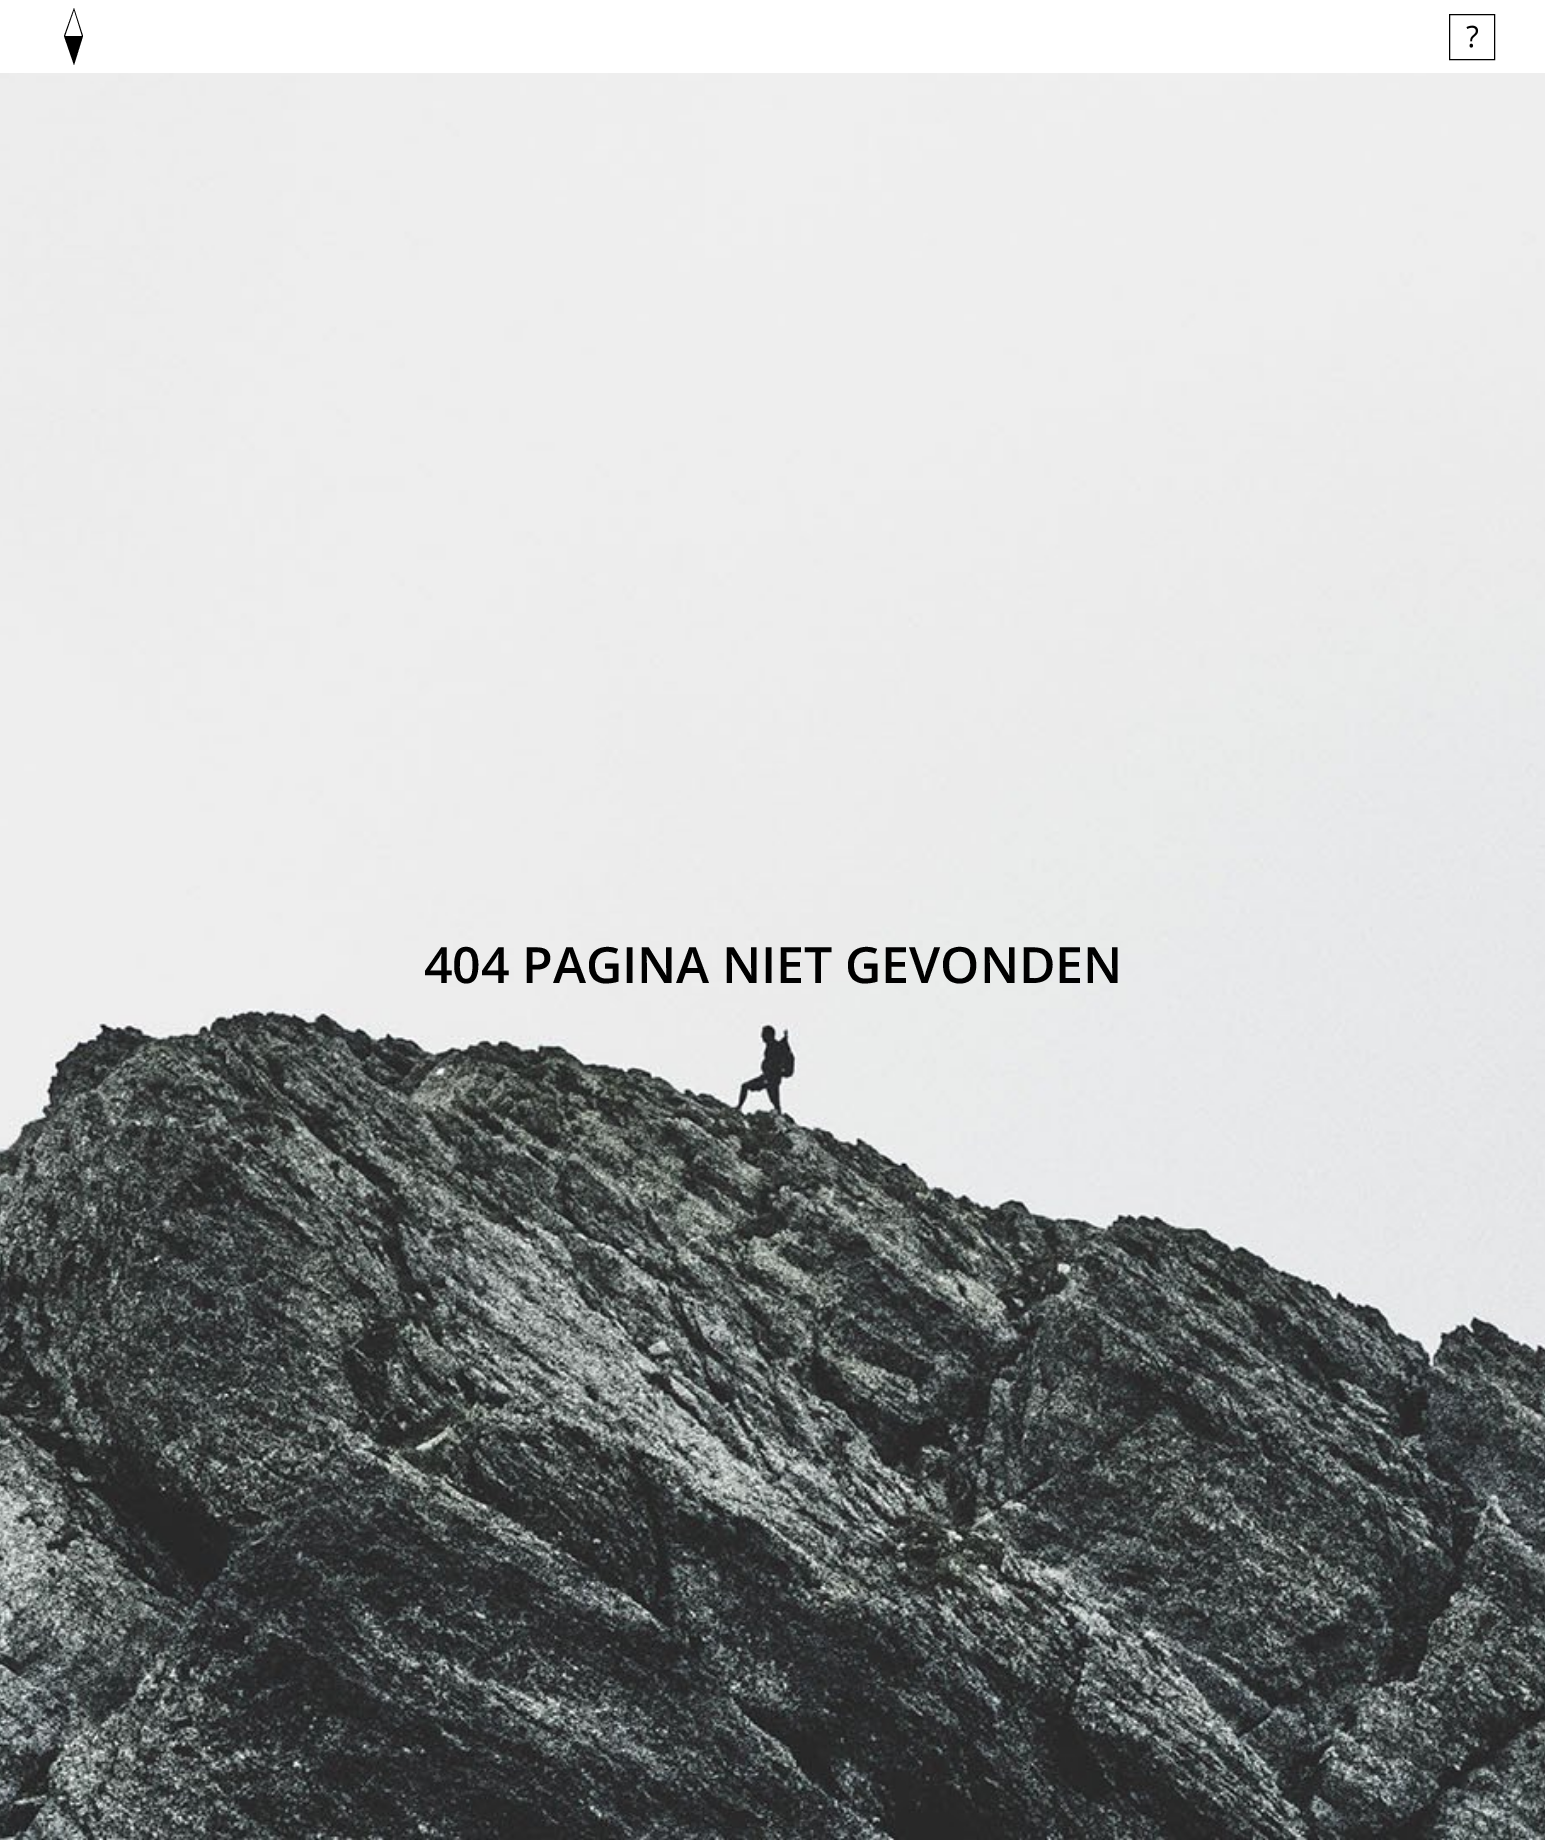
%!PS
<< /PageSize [1545 1840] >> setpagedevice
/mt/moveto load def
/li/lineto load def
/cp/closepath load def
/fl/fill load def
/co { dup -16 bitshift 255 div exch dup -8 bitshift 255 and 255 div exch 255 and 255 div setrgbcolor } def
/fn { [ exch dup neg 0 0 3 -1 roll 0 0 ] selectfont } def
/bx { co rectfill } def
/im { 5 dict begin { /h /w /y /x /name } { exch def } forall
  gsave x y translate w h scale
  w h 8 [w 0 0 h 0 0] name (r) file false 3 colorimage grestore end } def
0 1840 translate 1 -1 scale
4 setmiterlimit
0 0 1545 1840 16#FFFFFF bx
16#000000 co
83 36 mt 74 8 li 64 36 li 74 65 li cp 74 10 mt 82 36 li 65 36 li cp fl
1449.5 14.5 45 45 rectstroke
(media/1.raw) 1466 25 13 23 im
(media/2.raw) 0 73 1545 1767 im
/OpenSans-SemiBold 50 fn
424 983 mt -.1 0 (404 PAGINA NIET GEVONDEN) ashow
showpage
